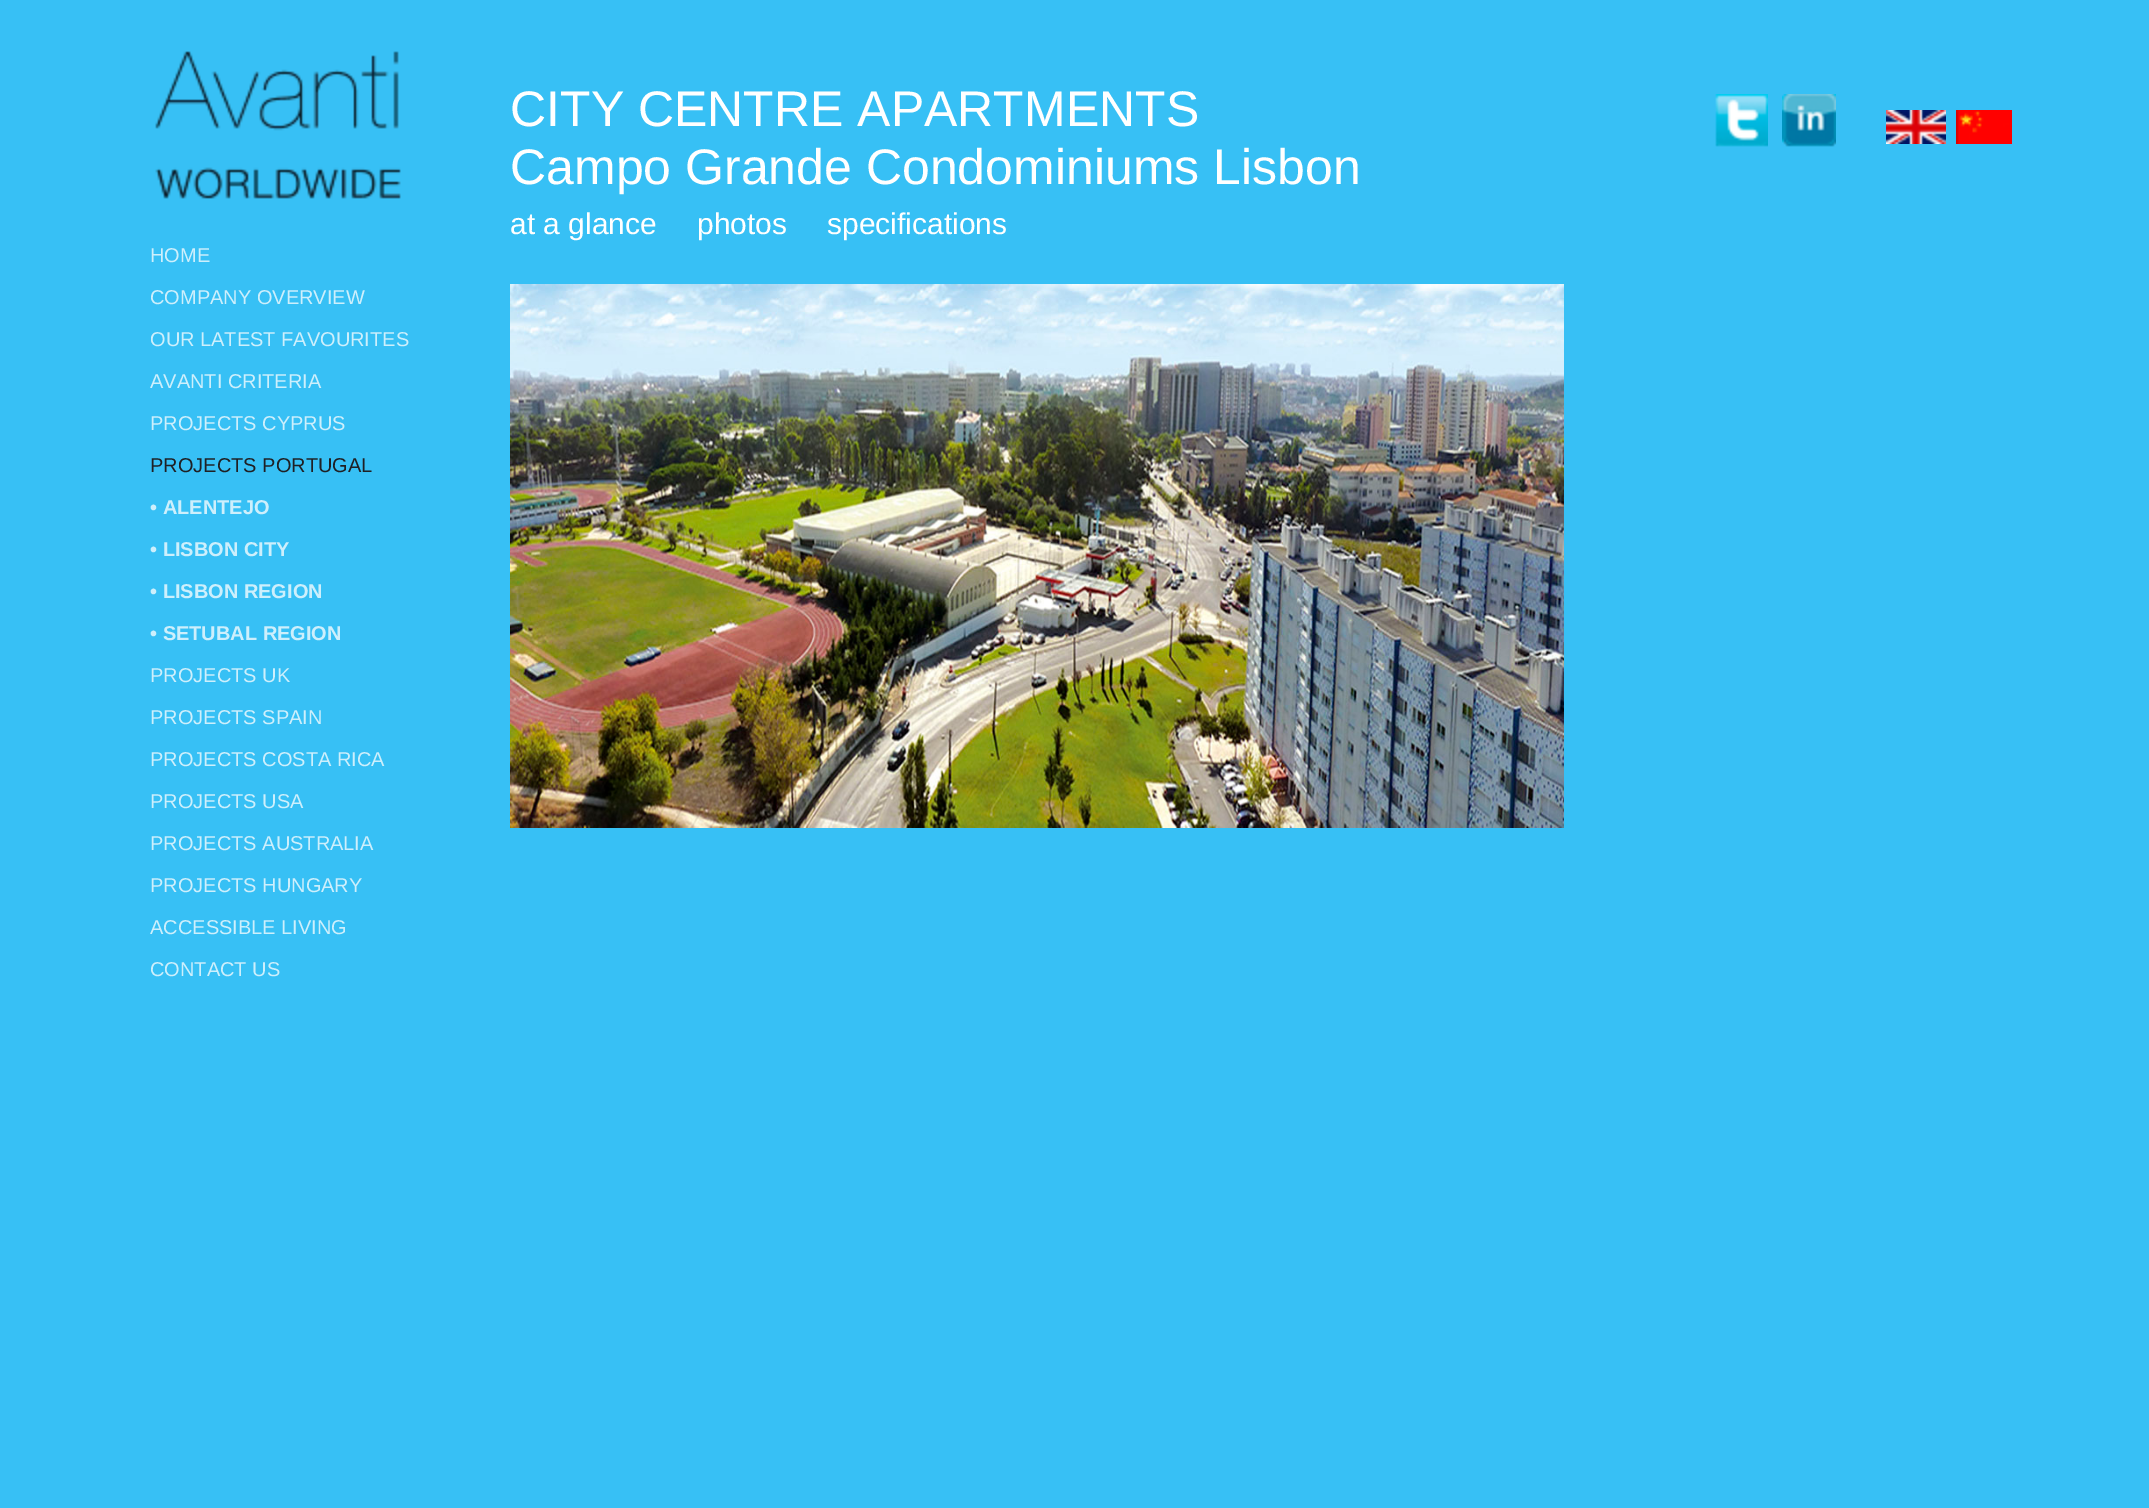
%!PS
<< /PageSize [2149 1508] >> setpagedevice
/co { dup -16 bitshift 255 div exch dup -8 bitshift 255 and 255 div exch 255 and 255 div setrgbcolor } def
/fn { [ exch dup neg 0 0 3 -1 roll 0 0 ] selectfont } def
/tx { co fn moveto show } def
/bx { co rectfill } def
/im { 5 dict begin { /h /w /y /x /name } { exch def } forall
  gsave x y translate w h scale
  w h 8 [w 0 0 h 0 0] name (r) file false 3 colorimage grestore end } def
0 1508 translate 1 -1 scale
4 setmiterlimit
0 0 2149 1508 16#37C0F5 bx
(media/1.raw) 510 284 1054 544 im
(media/2.raw) 1715 94 53 53 im
(media/3.raw) 1782 94 54 53 im
(media/4.raw) 1886 110 60 34 im
(media/5.raw) 1956 110 56 34 im
(media/6.raw) 155 51 246 148 im
(CITY CENTRE APARTMENTS) 510 126 /LiberationSans-Regular 50 16#FFFFFF tx
(Campo Grande Condominiums Lisbon) 510 184 /LiberationSans-Regular 50 16#FFFFFF tx
(at a glance) 510 234 /LiberationSans-Regular 30 16#FFFFFF tx
(photos) 697 234 /LiberationSans-Regular 30 16#FFFFFF tx
(specifications) 827 234 /LiberationSans-Regular 30 16#FFFFFF tx
(HOME) 150 262 /LiberationSans-Regular 20 16#CDEFFC tx
(COMPANY OVERVIEW) 150 304 /LiberationSans-Regular 20 16#CDEFFC tx
(OUR LATEST FAVOURITES) 150 346 /LiberationSans-Regular 20 16#CDEFFC tx
(AVANTI CRITERIA) 150 388 /LiberationSans-Regular 20 16#CDEFFC tx
(PROJECTS CYPRUS) 150 430 /LiberationSans-Regular 20 16#CDEFFC tx
(PROJECTS PORTUGAL) 150 472 /LiberationSans-Regular 20 16#1F2024 tx
(• ALENTEJO) 150 514 /LiberationSans-Bold 20 16#CDEFFC tx
(• LISBON CITY) 150 556 /LiberationSans-Bold 20 16#CDEFFC tx
(• LISBON REGION) 150 598 /LiberationSans-Bold 20 16#CDEFFC tx
(• SETUBAL REGION) 150 640 /LiberationSans-Bold 20 16#CDEFFC tx
(PROJECTS UK) 150 682 /LiberationSans-Regular 20 16#CDEFFC tx
(PROJECTS SPAIN) 150 724 /LiberationSans-Regular 20 16#CDEFFC tx
(PROJECTS COSTA RICA) 150 766 /LiberationSans-Regular 20 16#CDEFFC tx
(PROJECTS USA) 150 808 /LiberationSans-Regular 20 16#CDEFFC tx
(PROJECTS AUSTRALIA) 150 850 /LiberationSans-Regular 20 16#CDEFFC tx
(PROJECTS HUNGARY) 150 892 /LiberationSans-Regular 20 16#CDEFFC tx
(ACCESSIBLE LIVING) 150 934 /LiberationSans-Regular 20 16#CDEFFC tx
(CONTACT US) 150 976 /LiberationSans-Regular 20 16#CDEFFC tx
showpage
